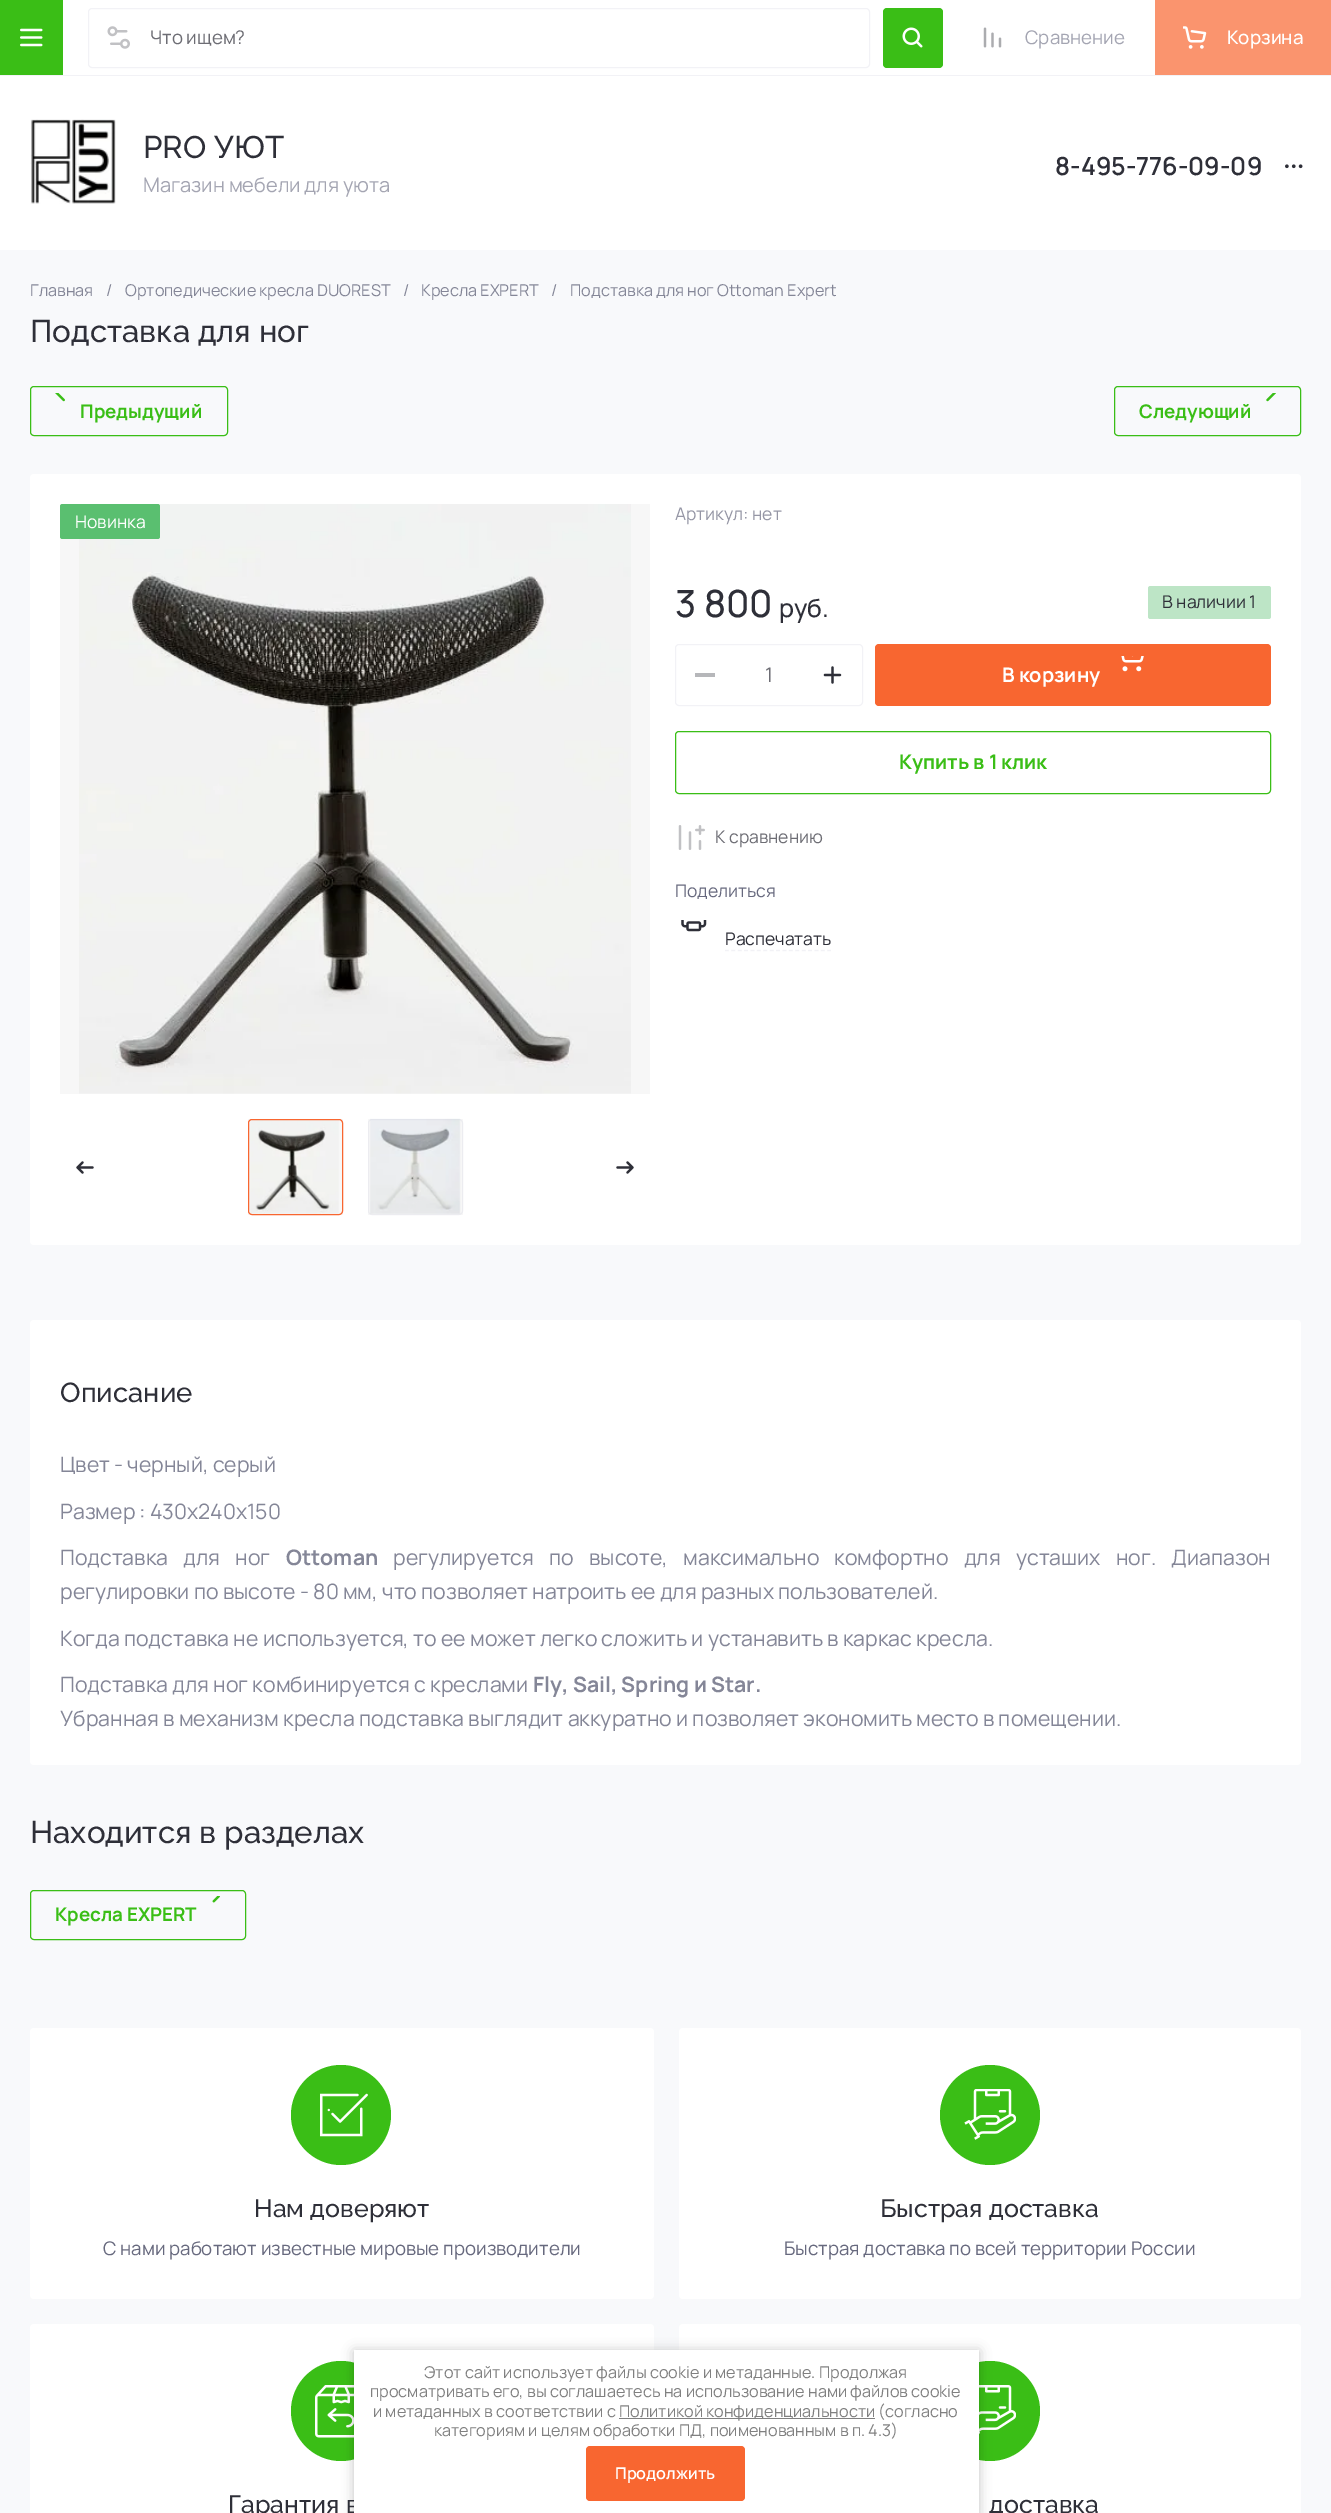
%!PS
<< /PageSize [1331 2513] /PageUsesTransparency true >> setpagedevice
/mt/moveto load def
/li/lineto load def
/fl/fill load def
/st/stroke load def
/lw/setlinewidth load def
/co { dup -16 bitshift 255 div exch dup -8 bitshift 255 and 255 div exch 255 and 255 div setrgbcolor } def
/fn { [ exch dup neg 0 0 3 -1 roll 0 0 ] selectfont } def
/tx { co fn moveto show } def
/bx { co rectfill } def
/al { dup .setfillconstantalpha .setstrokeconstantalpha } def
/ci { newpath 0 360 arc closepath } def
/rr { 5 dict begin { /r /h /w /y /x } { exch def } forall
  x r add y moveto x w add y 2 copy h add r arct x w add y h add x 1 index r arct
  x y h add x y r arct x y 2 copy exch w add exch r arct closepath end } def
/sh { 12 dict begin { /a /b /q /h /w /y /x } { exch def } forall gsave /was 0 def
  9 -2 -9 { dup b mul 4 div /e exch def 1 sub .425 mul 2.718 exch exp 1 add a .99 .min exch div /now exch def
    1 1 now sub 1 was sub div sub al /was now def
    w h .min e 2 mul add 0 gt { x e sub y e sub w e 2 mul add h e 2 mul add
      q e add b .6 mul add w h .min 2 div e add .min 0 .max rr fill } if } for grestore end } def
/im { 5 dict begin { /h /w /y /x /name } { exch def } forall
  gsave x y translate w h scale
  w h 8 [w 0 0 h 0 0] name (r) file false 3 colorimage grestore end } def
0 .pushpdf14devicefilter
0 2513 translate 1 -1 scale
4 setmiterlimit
0 0 1331 2513 16#FFFFFF bx
0 0 63 75 16#3ABE16 bx
(media/1.raw) 20 28 23 19 im
16#F2F2F6 co
88.5 8.5 781 59 3.5 rr st
(media/2.raw) 107 26 23 23 im
16#3ABE16 co
883 8 60 60 4 rr fl
(media/3.raw) 902 27 21 21 im
(media/4.raw) 983 27 19 21 im
1155 0 176 75 16#FA946E bx
(media/5.raw) 1183 26 24 23 im
0 75 1331 1 16#F2F2F6 bx
(media/6.raw) 30 119 86 85 im
(media/7.raw) 1285 164 18 5 im
0 250 1331 2263 16#F8F9FB bx
16#3ABE16 co
30.5 386.5 197 49 3.5 rr st
(media/8.raw) 55 393 10 9 im
1114.5 386.5 186 49 3.5 rr st
(media/9.raw) 1266 393 10 9 im
16#FFFFFF co
30 474 1271 771 4 rr fl
(media/10.raw) 79 504 552 590 im
0.03 al
60 504 590 590 16#000000 bx
1 al
(media/11.raw) 76 1161 18 13 im
(media/12.raw) 616 1161 18 13 im
16#5ABF70 co
60 504 100 35 2.5 rr fl
(media/13.raw) 250 1119 89 95 im
0.03 al
248 1119 95 96 16#000000 bx
1 al
16#F86630 co
248.5 1119.5 94 95 3.5 rr st
(media/14.raw) 370 1118 91 96 im
0.03 al
368 1119 95 96 16#000000 bx
0.3 al
16#D2D3E0 co
368.5 1119.5 94 95 3.5 rr st
1 al
16#BDE5C6 co
1148 586 123 33 2.5 rr fl
16#F2F2F6 co
675.5 644.5 187 61 3.5 rr st
695 673 20 4 16#B6B7BA bx
(media/15.raw) 823 666 19 18 im
16#F86630 co
875 644 396 62 4 rr fl
(media/16.raw) 1121 656 23 16 im
16#3ABE16 co
675.5 731.5 595 62 3.5 rr st
(media/17.raw) 678 825 27 25 im
(media/18.raw) 681 920 26 12 im
16#F2F2F6 co
1.2 lw
[3.75 2.65] 0 setdash
725 950.5 mt 831 950.5 li st
16#FFFFFF co
30 1320 1271 445 4 rr fl
16#3ABE16 co
1 lw
[] 0 setdash
30.5 1890.5 215 49 3.5 rr st
(media/19.raw) 212 1896 8 7 im
16#FFFFFF co
30 2028 624 271 4 rr fl
16#3ABE16 co
341 2115 50 ci fl
(media/20.raw) 320 2093 48 44 im
16#FFFFFF co
679 2028 622 271 4 rr fl
16#3ABE16 co
990 2115 50 ci fl
(media/21.raw) 964 2089 52 51 im
16#FFFFFF co
30 2324 624 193 4 rr fl
16#3ABE16 co
341 2411 50 ci fl
(media/22.raw) 315 2385 39 53 im
16#FFFFFF co
679 2324 622 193 4 rr fl
16#3ABE16 co
990 2411 50 ci fl
(media/23.raw) 979 2385 37 49 im
16#000000 co
354 2351 625 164 0 6 .23 sh
(Что ищем?) 150 44 /Manrope-Regular 18.75 16#6D6D74 tx
(Сравнение) 1025 44 /Manrope-Regular 18.75 16#A4A5B2 tx
(Корзина) 1227 44 /Manrope-Medium 18.75 16#FFFFFF tx
(PRO УЮТ) 143 158 /Raleway-Medium 31.25 16#2E2F38 tx
(Магазин мебели для уюта) 143 192 /Manrope-Regular 20 16#A4A5B2 tx
(8-495-776-09-09) 1055 175 /Manrope-SemiBold 25 16#2E2F38 tx
(Главная) 30 296 /Manrope-Regular 16.25 16#848697 tx
(/) 106 296 /Manrope-Regular 16.25 16#848697 tx
(Ортопедические кресла DUOREST) 125 296 /Manrope-Regular 16.25 16#848697 tx
(/) 403 296 /Manrope-Regular 16.25 16#848697 tx
(Кресла EXPERT) 421 296 /Manrope-Regular 16.25 16#848697 tx
(/) 551 296 /Manrope-Regular 16.25 16#848697 tx
(Подставка для ног Ottoman Expert) 570 296 /Manrope-Regular 16.25 16#848697 tx
(Подставка для ног) 30 342 /Raleway-Medium 31.25 16#2E2F38 tx
(Предыдущий) 80 418 /Manrope-Bold 18.75 16#3ABE16 tx
(Следующий) 1139 418 /Manrope-Bold 18.75 16#3ABE16 tx
(Новинка) 75 528 /Manrope-Regular 17.5 16#FFFFFF tx
(Артикул: нет) 675 520 /Manrope-Regular 17.5 16#9596A5 tx
(3 800) 675 617 /Manrope-Medium 37.5 16#2E2F38 tx
(руб.) 779 617 /Manrope-Medium 25 16#2E2F38 tx
(В наличии 1) 1162 608 /Manrope-Regular 17.5 16#2E2F38 tx
(1) 765 682 /Manrope-Regular 20 16#6D6D74 tx
(В корзину) 1002 682 /Manrope-Bold 20 16#FFFFFF tx
(Купить в 1 клик) 899 769 /Manrope-Bold 20 16#3ABE16 tx
(К сравнению) 715 843 /Manrope-Regular 17.5 16#6D6D74 tx
(Поделиться) 675 897 /Manrope-Regular 17.5 16#67697E tx
(Распечатать) 725 945 /Manrope-Regular 17.5 16#2E2F38 tx
(Описание) 60 1402 /Raleway-Medium 27.5 16#2E2F38 tx
(Цвет - черный, серый) 60 1472 /Manrope-Regular 21.25 16#848697 tx
(Размер : 430х240х150) 60 1519 /Manrope-Regular 21.25 16#848697 tx
60 1565 mt 11 0 32 (Подставка для ног) widthshow
(Ottoman) 286 1565 /Manrope-Bold 21.25 16#848697 tx
/Manrope-Regular 21.25 fn
393 1565 mt 11 0 32 (регулируется по высоте, максимально комфортно для усташих ног. Диапазон) widthshow
(регулировки по высоте - 80 мм, что позволяет натроить ее для разных пользователей.) 60 1599 /Manrope-Regular 21.25 16#848697 tx
(Когда подставка не используется, то ее может легко сложить и устанавить в каркас кресла.) 60 1646 /Manrope-Regular 21.25 16#848697 tx
(Подставка для ног комбинируется с креслами) 60 1692 /Manrope-Regular 21.25 16#848697 tx
(Fly, Sail, Spring и Star.) 533 1692 /Manrope-Bold 21.25 16#848697 tx
(Убранная в механизм кресла подставка выглядит аккуратно и позволяет экономить место в помещении.) 60 1726 /Manrope-Regular 21.25 16#848697 tx
(Находится в разделах) 30 1843 /Raleway-Medium 31.25 16#2E2F38 tx
(Кресла EXPERT) 55 1921 /Manrope-Bold 18.75 16#3ABE16 tx
(Нам доверяют) 254 2217 /Raleway-Medium 25 16#2E2F38 tx
(С нами работают известные мировые производители) 103 2255 /Manrope-Regular 18.75 16#67697E tx
(Быстрая доставка) 880 2217 /Raleway-Medium 25 16#2E2F38 tx
(Быстрая доставка по всей территории России) 784 2255 /Manrope-Regular 18.75 16#67697E tx
(Гарантия в) 228 2513 /Raleway-Medium 25 16#2E2F38 tx
(доставка) 989 2513 /Raleway-Medium 25 16#2E2F38 tx
354 2350 625 163 16#FFFFFF bx
(Этот сайт использует файлы cookie и метаданные. Продолжая) 424 2378 /Manrope-Regular 16.25 16#808080 tx
(просматривать его, вы соглашаетесь на использование нами файлов cookie) 370 2397 /Manrope-Regular 16.25 16#808080 tx
(и метаданных в соответствии с) 373 2417 /Manrope-Regular 16.25 16#808080 tx
619 2418 256 1 16#808080 bx
(Политикой конфиденциальности \(согласно) 619 2417 /Manrope-Regular 16.25 16#808080 tx
(категориям и целям обработки ПД, поименованным в п. 4.3\)) 434 2436 /Manrope-Regular 16.25 16#808080 tx
16#F86630 co
586 2446 159 55 4 rr fl
(Продолжить) 615 2479 /Manrope-SemiBold 16.25 16#FFFFFF tx
.poppdf14devicefilter showpage
